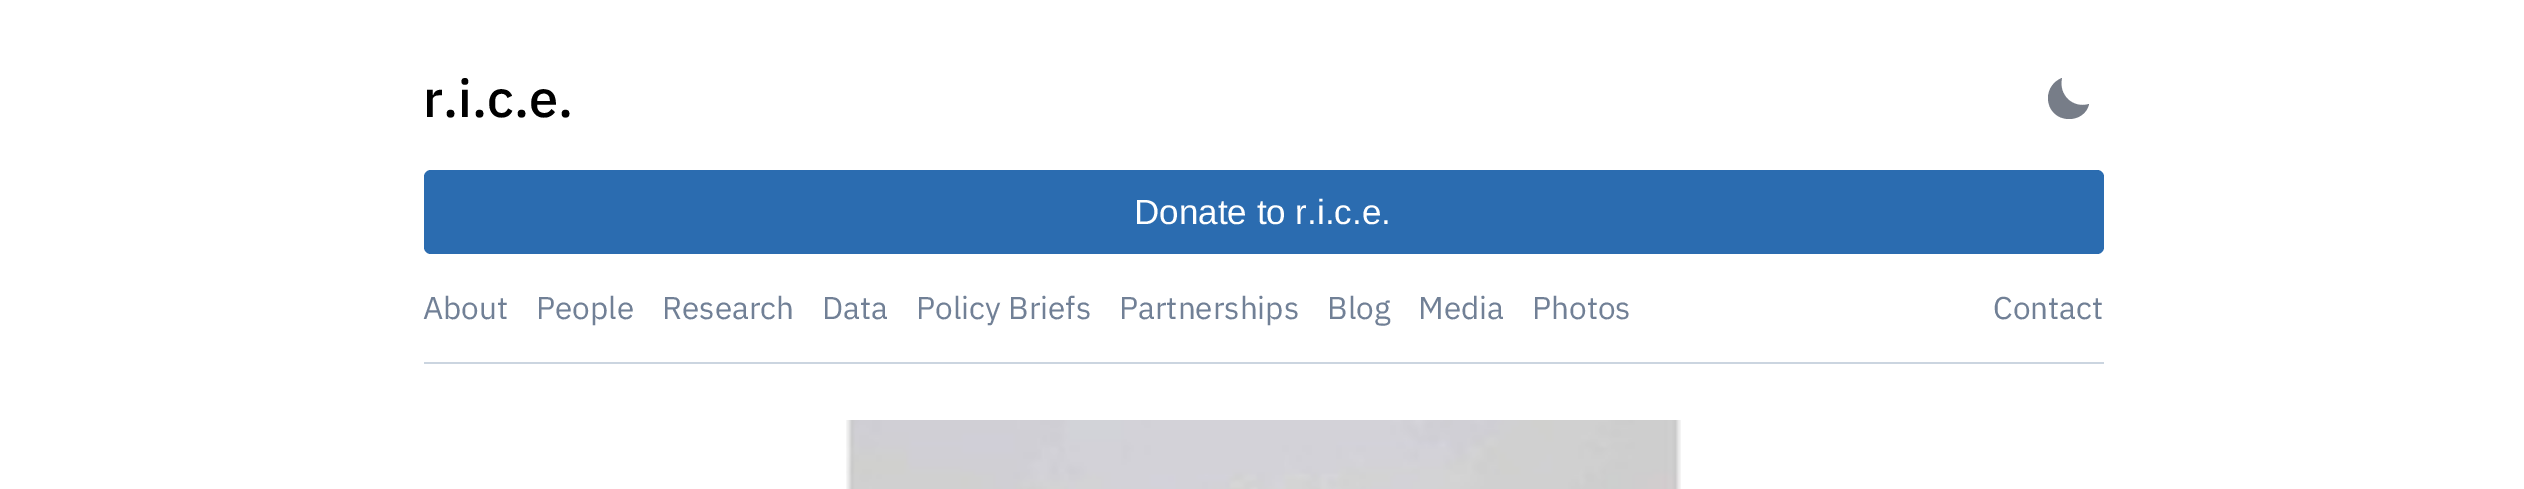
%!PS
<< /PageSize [2524 489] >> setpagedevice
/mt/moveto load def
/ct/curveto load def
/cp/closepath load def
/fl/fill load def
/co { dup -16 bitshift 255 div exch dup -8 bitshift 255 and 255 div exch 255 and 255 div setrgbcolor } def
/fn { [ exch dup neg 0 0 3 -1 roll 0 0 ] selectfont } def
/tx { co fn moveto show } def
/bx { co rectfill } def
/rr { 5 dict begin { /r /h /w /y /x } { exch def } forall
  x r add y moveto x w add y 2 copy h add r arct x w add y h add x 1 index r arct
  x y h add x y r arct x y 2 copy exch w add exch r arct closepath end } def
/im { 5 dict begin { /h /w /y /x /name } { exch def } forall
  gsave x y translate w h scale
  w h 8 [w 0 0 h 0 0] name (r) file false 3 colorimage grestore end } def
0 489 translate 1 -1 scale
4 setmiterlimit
0 0 2524 489 16#FFFFFF bx
16#777D88 co
2089 104 mt 2073 109 2058 95 2062 78 ct 2054 81 2048 89 2048 98 ct 2048 110 2057 119 2069 119 ct 2079 119 2087 113 2089 104 ct cp fl
16#2B6CB0 co
424 170 1680 84 7 rr fl
424 362 1680 2 16#CBD5E0 bx
(media/1.raw) 846 420 835 69 im
(r.i.c.e.) 423 117 /IBMPlexSans-Medium 52.5 16#000000 tx
(Donate to r.i.c.e.) 1134 224 /LiberationSans-Regular 35 16#FFFFFF tx
(About) 423 319 /IBMPlexSans-Regular 31.5 16#718096 tx
(People) 536 319 /IBMPlexSans-Regular 31.5 16#718096 tx
(Research) 662 319 /IBMPlexSans-Regular 31.5 16#718096 tx
(Data) 822 319 /IBMPlexSans-Regular 31.5 16#718096 tx
(Policy Briefs) 916 319 /IBMPlexSans-Regular 31.5 16#718096 tx
(Partnerships) 1119 319 /IBMPlexSans-Regular 31.5 16#718096 tx
(Blog) 1327 319 /IBMPlexSans-Regular 31.5 16#718096 tx
(Media) 1418 319 /IBMPlexSans-Regular 31.5 16#718096 tx
(Photos) 1532 319 /IBMPlexSans-Regular 31.5 16#718096 tx
(Contact) 1993 319 /IBMPlexSans-Regular 31.5 16#718096 tx
showpage
